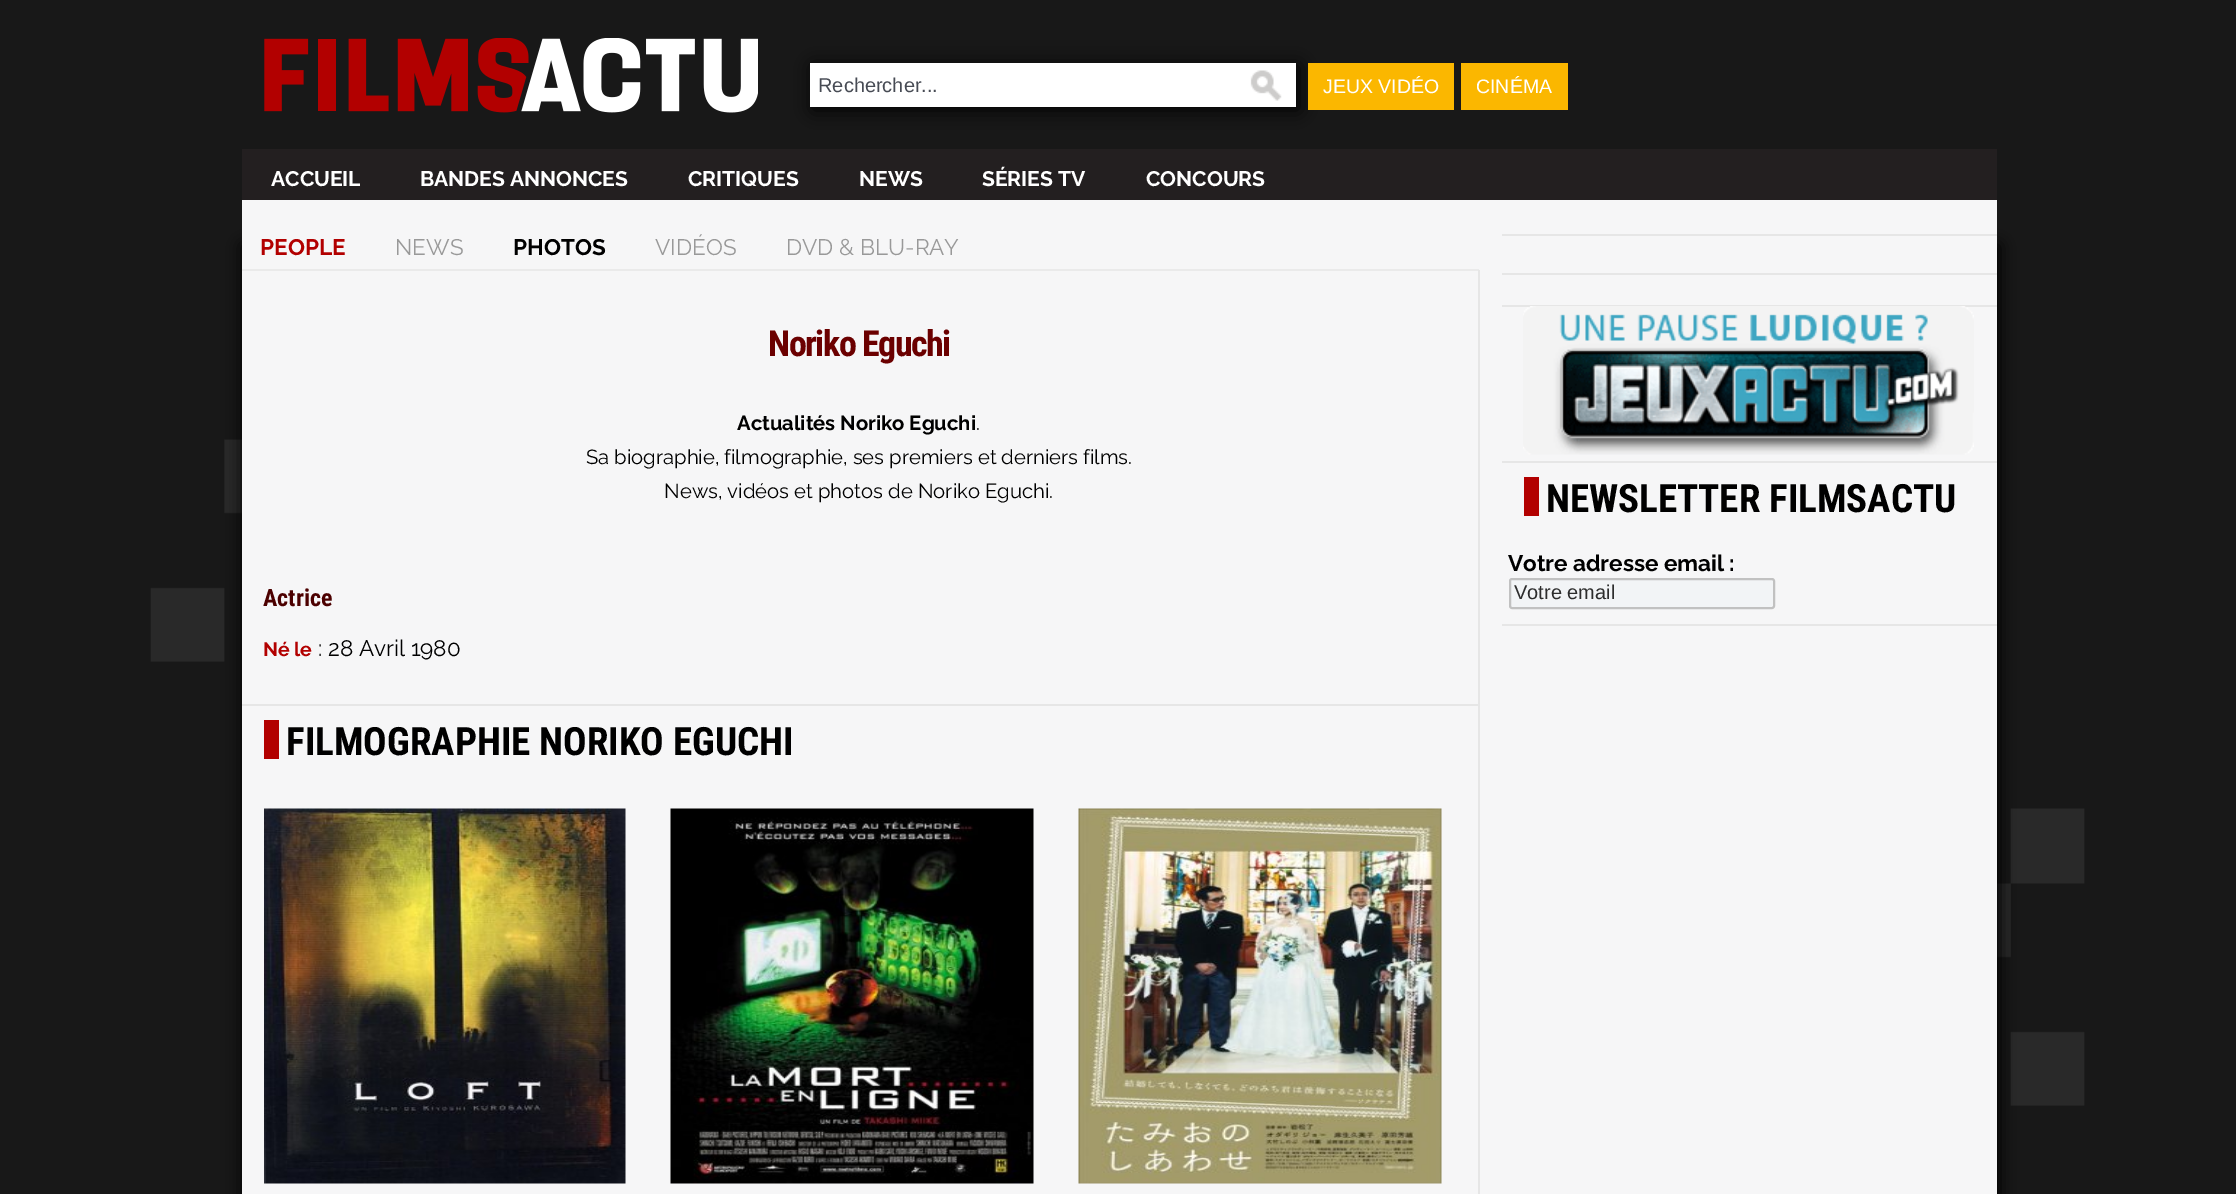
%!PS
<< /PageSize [2236 1194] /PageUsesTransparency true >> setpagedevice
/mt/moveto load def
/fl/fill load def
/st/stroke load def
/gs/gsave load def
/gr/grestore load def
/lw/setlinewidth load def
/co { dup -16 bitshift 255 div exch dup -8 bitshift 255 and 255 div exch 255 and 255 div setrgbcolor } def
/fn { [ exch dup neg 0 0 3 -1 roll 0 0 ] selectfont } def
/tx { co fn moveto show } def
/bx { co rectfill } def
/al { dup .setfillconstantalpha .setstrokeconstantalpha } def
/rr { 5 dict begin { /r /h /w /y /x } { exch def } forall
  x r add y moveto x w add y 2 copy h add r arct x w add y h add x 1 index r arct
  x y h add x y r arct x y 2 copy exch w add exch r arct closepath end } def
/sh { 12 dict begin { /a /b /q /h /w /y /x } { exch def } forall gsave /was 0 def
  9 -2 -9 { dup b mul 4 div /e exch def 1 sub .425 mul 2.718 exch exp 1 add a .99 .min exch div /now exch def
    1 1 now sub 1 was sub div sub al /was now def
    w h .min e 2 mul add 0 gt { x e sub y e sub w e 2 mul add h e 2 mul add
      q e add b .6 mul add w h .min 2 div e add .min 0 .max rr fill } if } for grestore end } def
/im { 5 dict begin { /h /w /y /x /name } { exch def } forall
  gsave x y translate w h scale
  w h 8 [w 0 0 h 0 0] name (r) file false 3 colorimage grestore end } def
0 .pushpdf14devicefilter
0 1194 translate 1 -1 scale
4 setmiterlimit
0 0 2236 1194 16#181818 bx
(media/1.raw) 150 439 1935 667 im
(media/2.raw) 264 38 494 75 im
16#000000 co
813 66 486 44 0 9 1 sh
810 63 486 44 16#FFFFFF bx
(media/3.raw) 1250 70 32 31 im
1308 63 146 47 16#FBB700 bx
1461 63 107 47 16#FBB700 bx
242 200 1755 27 16#F6F6F7 bx
242 149 1755 51 16#231F20 bx
16#000000 co
242 245 1758 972 0 7.5 1 sh
242 227 1755 967 16#F6F6F7 bx
242 269 1237 2 16#EAEAEA bx
1478 270 2 924 16#E6E6E6 bx
242 704 1236 2 16#E6E6E6 bx
264 720 15 39 16#B20000 bx
(media/4.raw) 264 808 362 376 im
(media/5.raw) 670 808 364 376 im
(media/6.raw) 1078 808 364 376 im
1502 234 495 2 16#E6E6E6 bx
1502 273 495 2 16#E6E6E6 bx
1502 305 495 2 16#E6E6E6 bx
(media/7.raw) 1523 306 451 149 im
1502 461 495 2 16#E6E6E6 bx
1524 477 15 39 16#B20000 bx
16#F2F4F6 co
1510 579 264 29 2 rr gs fl gr
16#C1C1C1 co
2 lw
st
1502 624 495 2 16#E6E6E6 bx
(Rechercher...) 818 92 /LiberationSans-Regular 20 16#474B54 tx
(JEUX VIDÉO) 1323 93 /LiberationSans-Regular 19.5 16#FFFFFF tx
(CINÉMA) 1476 93 /LiberationSans-Regular 19.5 16#FFFFFF tx
(ACCUEIL) 271 186 /Raleway-Bold 21 16#FFFFFF tx
(BANDES ANNONCES) 420 186 /Raleway-Bold 21 16#FFFFFF tx
(CRITIQUES) 688 186 /Raleway-Bold 21 16#FFFFFF tx
(NEWS) 859 186 /Raleway-Bold 21 16#FFFFFF tx
(SÉRIES TV) 982 186 /Raleway-Bold 21 16#FFFFFF tx
(CONCOURS) 1146 186 /Raleway-Bold 21 16#FFFFFF tx
(PEOPLE) 260 255 /Raleway-Bold 22.5 16#B20000 tx
(NEWS) 395 255 /Raleway-Regular 22.5 16#999999 tx
(PHOTOS) 513 255 /Raleway-Bold 22.5 16#000000 tx
(VIDÉOS) 655 255 /Raleway-Regular 22.5 16#999999 tx
(DVD & BLU-RAY) 786 255 /Raleway-Regular 22.5 16#999999 tx
/RobotoCondensed-Bold 36 fn
16#6B0000 co
768 356 mt -1.5 0 (Noriko Eguchi) ashow
(Actualités Noriko Eguchi) 737 430 /Raleway-Bold 20.25 16#000000 tx
(.) 976 430 /Raleway-Regular 20.25 16#000000 tx
(Sa biographie, filmographie, ses premiers et derniers films.) 586 464 /Raleway-Regular 20.25 16#000000 tx
(News, vidéos et photos de Noriko Eguchi.) 664 498 /Raleway-Regular 20.25 16#000000 tx
(Actrice) 263 606 /RobotoCondensed-Bold 24 16#4C0000 tx
(Né le) 263 656 /Raleway-Bold 19.5 16#B20000 tx
(: 28 Avril 1980) 318 656 /Raleway-Regular 22.5 16#000000 tx
(FILMOGRAPHIE NORIKO EGUCHI) 286 755 /RobotoCondensed-Bold 39 16#000000 tx
(NEWSLETTER FILMSACTU) 1546 512 /RobotoCondensed-Bold 39 16#000000 tx
(Votre adresse email :) 1508 571 /Raleway-Bold 22.5 16#000000 tx
(Votre email) 1514 599 /LiberationSans-Regular 20 16#2D2D2D tx
.poppdf14devicefilter showpage
